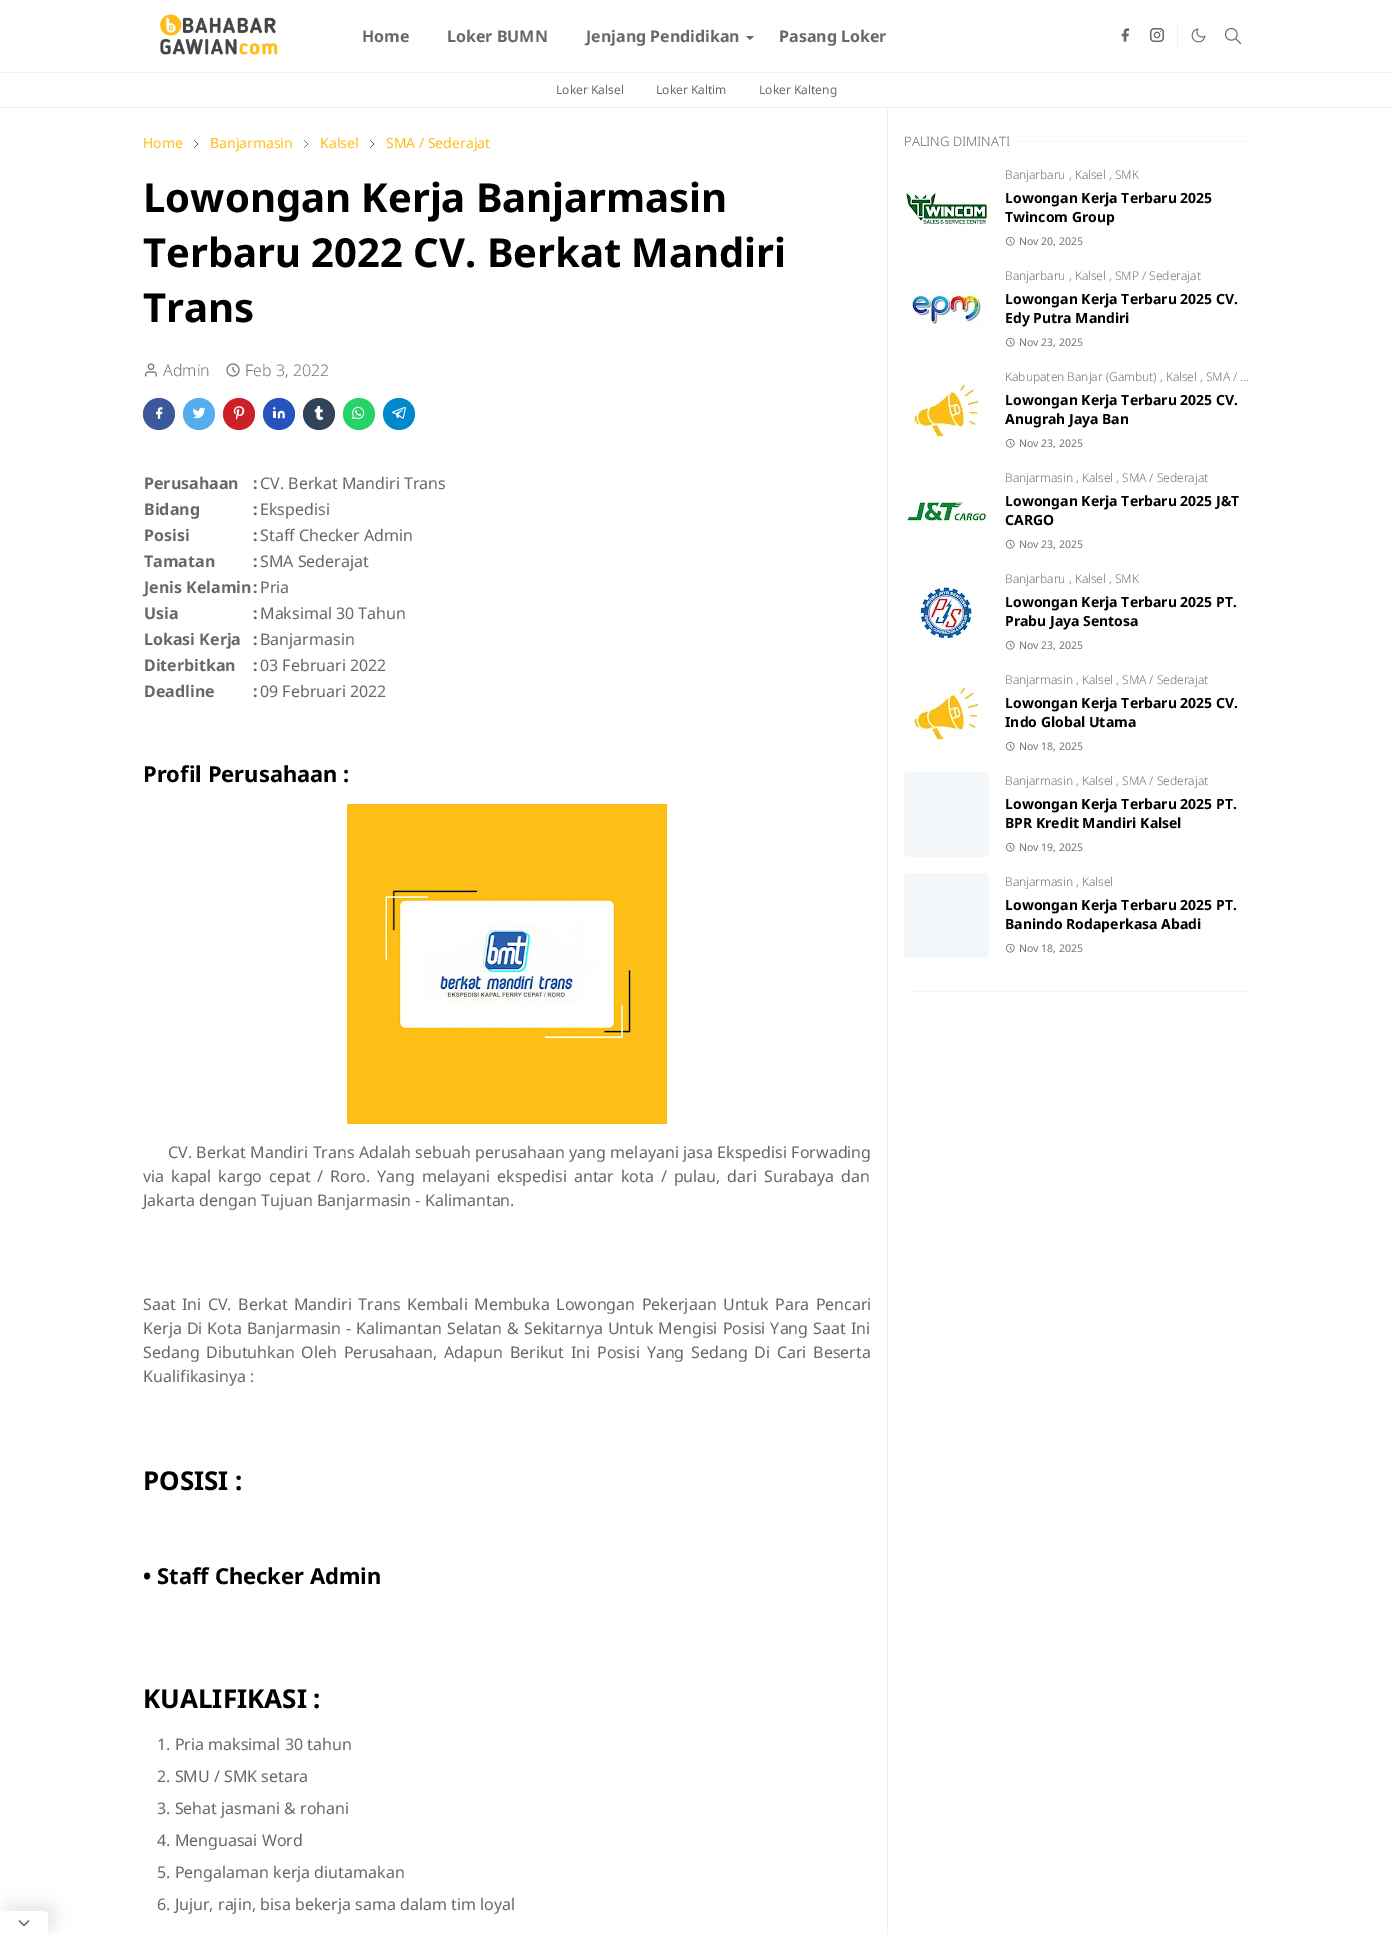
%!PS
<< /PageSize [1393 1935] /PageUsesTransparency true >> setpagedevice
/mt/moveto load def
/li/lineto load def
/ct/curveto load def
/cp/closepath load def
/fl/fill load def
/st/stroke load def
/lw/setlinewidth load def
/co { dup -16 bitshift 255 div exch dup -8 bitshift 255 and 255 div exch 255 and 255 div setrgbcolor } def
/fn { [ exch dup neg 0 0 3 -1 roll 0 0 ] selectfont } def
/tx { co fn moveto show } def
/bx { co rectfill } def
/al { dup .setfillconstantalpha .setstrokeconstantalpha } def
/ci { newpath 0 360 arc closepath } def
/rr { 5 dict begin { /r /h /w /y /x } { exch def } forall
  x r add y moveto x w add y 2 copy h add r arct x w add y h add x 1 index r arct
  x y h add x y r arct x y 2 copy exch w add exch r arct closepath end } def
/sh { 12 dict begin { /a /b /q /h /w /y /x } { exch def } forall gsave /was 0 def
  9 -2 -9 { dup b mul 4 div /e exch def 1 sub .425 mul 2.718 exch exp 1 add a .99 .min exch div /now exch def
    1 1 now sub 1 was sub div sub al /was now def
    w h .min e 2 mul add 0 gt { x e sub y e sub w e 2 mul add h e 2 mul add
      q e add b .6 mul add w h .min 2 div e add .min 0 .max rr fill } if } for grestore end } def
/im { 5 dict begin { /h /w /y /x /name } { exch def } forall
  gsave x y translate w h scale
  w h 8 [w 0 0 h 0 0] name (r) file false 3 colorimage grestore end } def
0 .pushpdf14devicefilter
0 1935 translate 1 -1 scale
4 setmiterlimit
0 0 1393 1935 16#FFFFFF bx
0 72 1393 1 16#EFEFEF bx
(media/1.raw) 159 14 119 41 im
16#686868 co
746 36 mt 754 36 li 750 40 li cp fl
1177 24 1 24 16#EFEFEF bx
(media/2.raw) 1121 28 8 14 im
(media/3.raw) 1150 28 14 14 im
(media/4.raw) 1191 28 15 15 im
(media/5.raw) 1224 27 18 18 im
0 107 1393 1 16#EFEFEF bx
16#000000 co
6 1905 48 24 4 8 .1 sh
16#FFFFFF co
4 1911 mt 44 1911 li 46 1911 48 1913 48 1915 ct 48 1935 li 0 1935 li 0 1915 li 0 1913 2 1911 4 1911 ct cp fl
16#686868 co
1.3 lw
1 setlinecap
1 setlinejoin
28.5 1921 mt 24 1925.5 li 19.5 1921 li st
(media/6.raw) 194 140 4 8 im
(media/6.raw) 304 140 4 8 im
(media/6.raw) 370 140 4 8 im
(media/7.raw) 145 363 12 14 im
(media/8.raw) 226 363 14 14 im
16#3B5998 co
159 414 16 ci fl
(media/9.raw) 156 407 7 12 im
16#55ACEE co
199 414 16 ci fl
(media/10.raw) 192 407 14 12 im
16#CB2027 co
239 414 16 ci fl
(media/11.raw) 233 406 12 14 im
16#2554BF co
279 414 16 ci fl
(media/12.raw) 273 407 12 12 im
16#314358 co
319 414 16 ci fl
(media/13.raw) 314 406 10 14 im
16#25D366 co
359 414 16 ci fl
(media/14.raw) 352 406 13 14 im
16#0088CC co
399 414 16 ci fl
(media/15.raw) 392 406 14 13 im
(media/16.raw) 347 804 320 320 im
887 108 1 1827 16#EFEFEF bx
1014 141 237 1 16#F3F7F9 bx
(media/17.raw) 904 166 85 85 im
(media/18.raw) 1005 236 10 10 im
(media/19.raw) 904 267 85 85 im
(media/18.raw) 1005 337 10 10 im
(media/20.raw) 904 368 85 85 im
(media/18.raw) 1005 438 10 10 im
(media/21.raw) 904 469 85 85 im
(media/18.raw) 1005 539 10 10 im
(media/22.raw) 904 570 85 85 im
(media/18.raw) 1005 640 10 10 im
(media/20.raw) 904 671 85 85 im
(media/18.raw) 1005 741 10 10 im
904 772 85 85 5 rr fl
(media/18.raw) 1005 842 10 10 im
904 873 85 85 5 rr fl
(media/18.raw) 1005 943 10 10 im
904 991 347 1 16#F3F7F9 bx
904 991 5 9 16#FFFFFF bx
(Home) 362 42 /NotoSans-Bold 16 16#686868 tx
(Loker BUMN) 447 42 /NotoSans-Bold 16 16#686868 tx
(Jenjang Pendidikan) 586 42 /NotoSans-Bold 16 16#686868 tx
(Pasang Loker) 779 42 /NotoSans-Bold 16 16#686868 tx
(Loker Kalsel) 556 94 /NotoSans-Regular 12 16#686868 tx
(Loker Kaltim) 656 94 /NotoSans-Regular 12 16#686868 tx
(Loker Kalteng) 759 94 /NotoSans-Regular 12 16#686868 tx
(Home) 143 148 /NotoSans-Regular 14 16#FEBD17 tx
(Banjarmasin) 210 148 /NotoSans-Regular 14 16#FEBD17 tx
(Kalsel) 320 148 /NotoSans-Regular 14 16#FEBD17 tx
(SMA / Sederajat) 386 148 /NotoSans-Regular 14 16#FEBD17 tx
(Lowongan Kerja Banjarmasin) 143 212 /NotoSans-Bold 40 16#000000 tx
(Terbaru 2022 CV. Berkat Mandiri) 143 267 /NotoSans-Bold 40 16#000000 tx
(Trans) 143 322 /NotoSans-Bold 40 16#000000 tx
(Admin) 163 376 /NotoSans-Light 16 16#6C757D tx
(Feb 3, 2022) 245 376 /NotoSans-Light 16 16#6C757D tx
(Perusahaan) 144 489 /NotoSans-Bold 16 16#686868 tx
(:) 253 489 /NotoSans-Bold 16 16#686868 tx
(CV. Berkat Mandiri Trans) 260 489 /NotoSans-Regular 16 16#686868 tx
(Bidang) 144 515 /NotoSans-Bold 16 16#686868 tx
(:) 253 515 /NotoSans-Bold 16 16#686868 tx
(Ekspedisi) 260 515 /NotoSans-Regular 16 16#686868 tx
(Posisi) 144 541 /NotoSans-Bold 16 16#686868 tx
(:) 253 541 /NotoSans-Bold 16 16#686868 tx
(Staff Checker Admin) 260 541 /NotoSans-Regular 16 16#686868 tx
(Tamatan) 144 567 /NotoSans-Bold 16 16#686868 tx
(:) 253 567 /NotoSans-Bold 16 16#686868 tx
(SMA Sederajat) 260 567 /NotoSans-Regular 16 16#686868 tx
(Jenis Kelamin) 144 593 /NotoSans-Bold 16 16#686868 tx
(:) 253 593 /NotoSans-Bold 16 16#686868 tx
(Pria) 260 593 /NotoSans-Regular 16 16#686868 tx
(Usia) 144 619 /NotoSans-Bold 16 16#686868 tx
(:) 253 619 /NotoSans-Bold 16 16#686868 tx
(Maksimal 30 Tahun) 260 619 /NotoSans-Regular 16 16#686868 tx
(Lokasi Kerja) 144 645 /NotoSans-Bold 16 16#686868 tx
(:) 253 645 /NotoSans-Bold 16 16#686868 tx
(Banjarmasin) 260 645 /NotoSans-Regular 16 16#686868 tx
(Diterbitkan) 144 671 /NotoSans-Bold 16 16#686868 tx
(:) 253 671 /NotoSans-Bold 16 16#686868 tx
(03 Februari 2022) 260 671 /NotoSans-Regular 16 16#686868 tx
(Deadline) 144 697 /NotoSans-Bold 16 16#686868 tx
(:) 253 697 /NotoSans-Bold 16 16#686868 tx
(09 Februari 2022) 260 697 /NotoSans-Regular 16 16#686868 tx
(Profil Perusahaan :) 143 782 /NotoSans-Bold 22 16#000000 tx
/NotoSans-Regular 16 fn
16#686868 co
168 1158 mt .25 0 32 (CV. Berkat Mandiri Trans Adalah sebuah perusahaan yang melayani jasa Ekspedisi Forwading) widthshow
143 1182 mt 2.75 0 32 (via kapal kargo cepat / Roro. Yang melayani ekspedisi antar kota / pulau, dari Surabaya dan) widthshow
(Jakarta dengan Tujuan Banjarmasin - Kalimantan.) 143 1206 /NotoSans-Regular 16 16#686868 tx
143 1310 mt 2.25 0 32 (Saat Ini CV. Berkat Mandiri Trans Kembali Membuka Lowongan Pekerjaan Untuk Para Pencari) widthshow
143 1334 mt .8 0 32 (Kerja Di Kota Banjarmasin - Kalimantan Selatan & Sekitarnya Untuk Mengisi Posisi Yang Saat Ini) widthshow
143 1358 mt 2.6 0 32 (Sedang Dibutuhkan Oleh Perusahaan, Adapun Berikut Ini Posisi Yang Sedang Di Cari Beserta) widthshow
(Kualifikasinya :) 143 1382 /NotoSans-Regular 16 16#686868 tx
(POSISI :) 143 1490 /NotoSans-Bold 26 16#000000 tx
(• Staff Checker Admin) 143 1584 /NotoSans-Bold 22 16#000000 tx
(KUALIFIKASI :) 143 1708 /NotoSans-Bold 26 16#000000 tx
(1. Pria maksimal 30 tahun) 157 1750 /NotoSans-Regular 16 16#686868 tx
(2. SMU / SMK setara) 157 1782 /NotoSans-Regular 16 16#686868 tx
(3. Sehat jasmani & rohani) 157 1814 /NotoSans-Regular 16 16#686868 tx
(4. Menguasai Word) 157 1846 /NotoSans-Regular 16 16#686868 tx
(5. Pengalaman kerja diutamakan) 157 1878 /NotoSans-Regular 16 16#686868 tx
(6. Jujur, rajin, bisa bekerja sama dalam tim loyal) 157 1910 /NotoSans-Regular 16 16#686868 tx
(PALING DIMINATI) 904 146 /NotoSans-Light 13 16#686868 tx
(Banjarbaru , Kalsel , SMK) 1005 179 /NotoSans-Light 12 16#6C757D tx
(Lowongan Kerja Terbaru 2025) 1005 203 /NotoSans-Bold 14 16#000000 tx
(Twincom Group) 1005 222 /NotoSans-Bold 14 16#000000 tx
(Nov 20, 2025) 1019 245 /NotoSans-Regular 10.5 16#6C757D tx
(Banjarbaru , Kalsel , SMP / Sederajat) 1005 280 /NotoSans-Light 12 16#6C757D tx
(Lowongan Kerja Terbaru 2025 CV.) 1005 304 /NotoSans-Bold 14 16#000000 tx
(Edy Putra Mandiri) 1005 323 /NotoSans-Bold 14 16#000000 tx
(Nov 23, 2025) 1019 346 /NotoSans-Regular 10.5 16#6C757D tx
(Kabupaten Banjar \(Gambut\) , Kalsel , SMA / …) 1005 381 /NotoSans-Light 12 16#6C757D tx
(Lowongan Kerja Terbaru 2025 CV.) 1005 405 /NotoSans-Bold 14 16#000000 tx
(Anugrah Jaya Ban) 1005 424 /NotoSans-Bold 14 16#000000 tx
(Nov 23, 2025) 1019 447 /NotoSans-Regular 10.5 16#6C757D tx
(Banjarmasin , Kalsel , SMA / Sederajat) 1005 482 /NotoSans-Light 12 16#6C757D tx
(Lowongan Kerja Terbaru 2025 J&T) 1005 506 /NotoSans-Bold 14 16#000000 tx
(CARGO) 1005 525 /NotoSans-Bold 14 16#000000 tx
(Nov 23, 2025) 1019 548 /NotoSans-Regular 10.5 16#6C757D tx
(Banjarbaru , Kalsel , SMK) 1005 583 /NotoSans-Light 12 16#6C757D tx
(Lowongan Kerja Terbaru 2025 PT.) 1005 607 /NotoSans-Bold 14 16#000000 tx
(Prabu Jaya Sentosa) 1005 626 /NotoSans-Bold 14 16#000000 tx
(Nov 23, 2025) 1019 649 /NotoSans-Regular 10.5 16#6C757D tx
(Banjarmasin , Kalsel , SMA / Sederajat) 1005 684 /NotoSans-Light 12 16#6C757D tx
(Lowongan Kerja Terbaru 2025 CV.) 1005 708 /NotoSans-Bold 14 16#000000 tx
(Indo Global Utama) 1005 727 /NotoSans-Bold 14 16#000000 tx
(Nov 18, 2025) 1019 750 /NotoSans-Regular 10.5 16#6C757D tx
(Banjarmasin , Kalsel , SMA / Sederajat) 1005 785 /NotoSans-Light 12 16#6C757D tx
(Lowongan Kerja Terbaru 2025 PT.) 1005 809 /NotoSans-Bold 14 16#000000 tx
(BPR Kredit Mandiri Kalsel) 1005 828 /NotoSans-Bold 14 16#000000 tx
(Nov 19, 2025) 1019 851 /NotoSans-Regular 10.5 16#6C757D tx
(Banjarmasin , Kalsel) 1005 886 /NotoSans-Light 12 16#6C757D tx
(Lowongan Kerja Terbaru 2025 PT.) 1005 910 /NotoSans-Bold 14 16#000000 tx
(Banindo Rodaperkasa Abadi) 1005 929 /NotoSans-Bold 14 16#000000 tx
(Nov 18, 2025) 1019 952 /NotoSans-Regular 10.5 16#6C757D tx
.poppdf14devicefilter showpage
